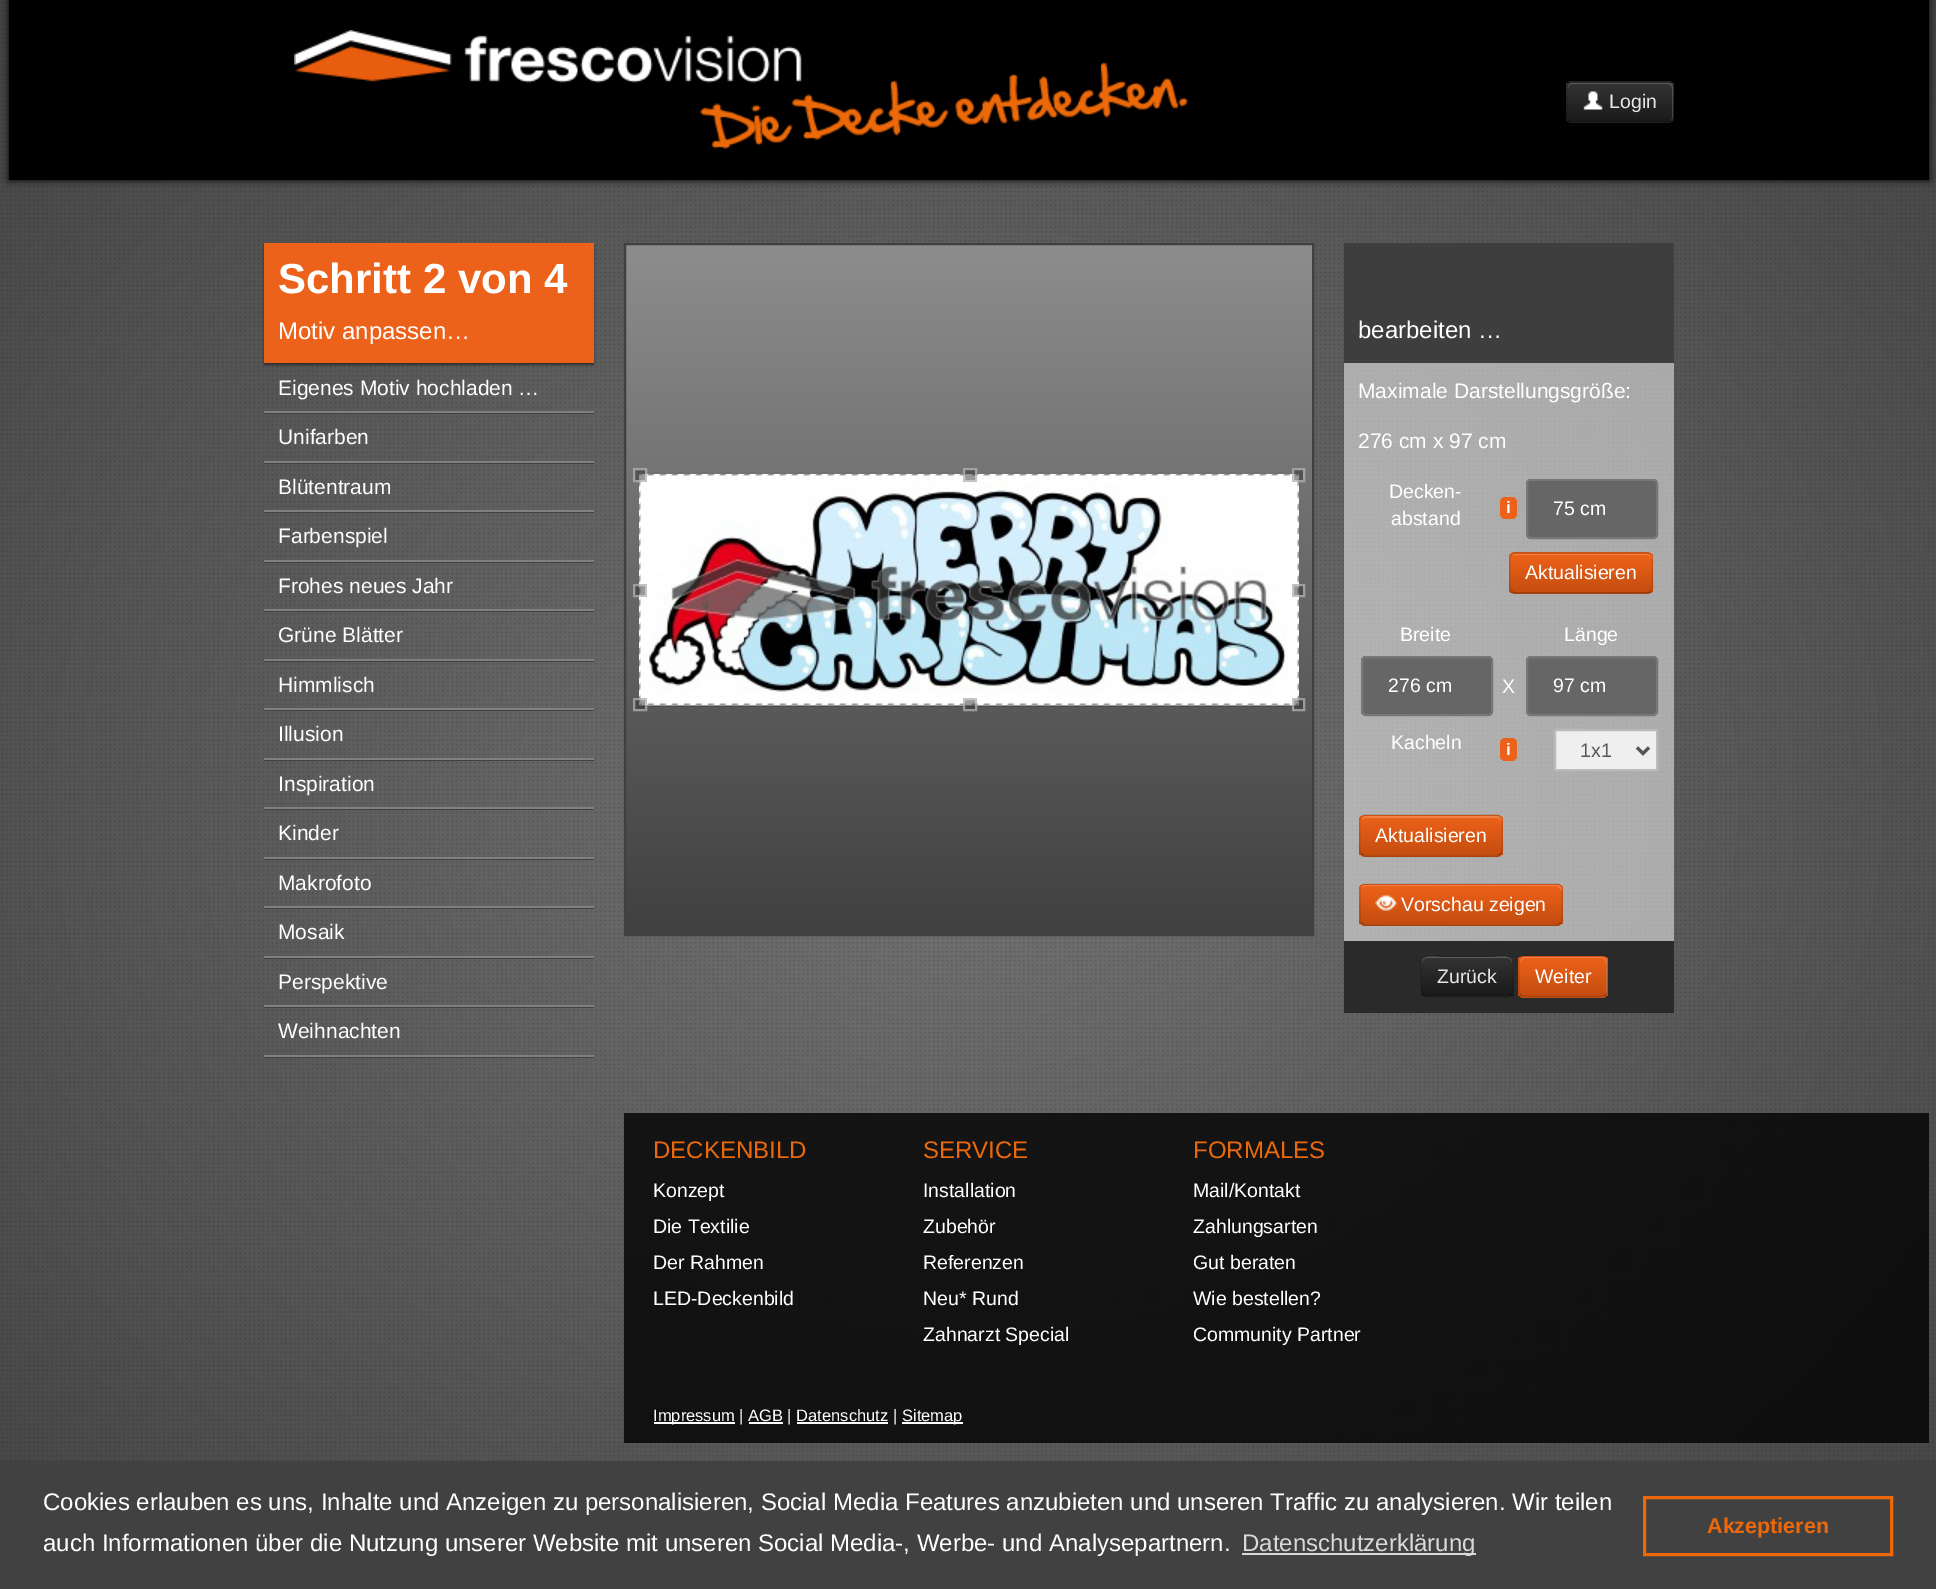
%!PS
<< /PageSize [1936 1589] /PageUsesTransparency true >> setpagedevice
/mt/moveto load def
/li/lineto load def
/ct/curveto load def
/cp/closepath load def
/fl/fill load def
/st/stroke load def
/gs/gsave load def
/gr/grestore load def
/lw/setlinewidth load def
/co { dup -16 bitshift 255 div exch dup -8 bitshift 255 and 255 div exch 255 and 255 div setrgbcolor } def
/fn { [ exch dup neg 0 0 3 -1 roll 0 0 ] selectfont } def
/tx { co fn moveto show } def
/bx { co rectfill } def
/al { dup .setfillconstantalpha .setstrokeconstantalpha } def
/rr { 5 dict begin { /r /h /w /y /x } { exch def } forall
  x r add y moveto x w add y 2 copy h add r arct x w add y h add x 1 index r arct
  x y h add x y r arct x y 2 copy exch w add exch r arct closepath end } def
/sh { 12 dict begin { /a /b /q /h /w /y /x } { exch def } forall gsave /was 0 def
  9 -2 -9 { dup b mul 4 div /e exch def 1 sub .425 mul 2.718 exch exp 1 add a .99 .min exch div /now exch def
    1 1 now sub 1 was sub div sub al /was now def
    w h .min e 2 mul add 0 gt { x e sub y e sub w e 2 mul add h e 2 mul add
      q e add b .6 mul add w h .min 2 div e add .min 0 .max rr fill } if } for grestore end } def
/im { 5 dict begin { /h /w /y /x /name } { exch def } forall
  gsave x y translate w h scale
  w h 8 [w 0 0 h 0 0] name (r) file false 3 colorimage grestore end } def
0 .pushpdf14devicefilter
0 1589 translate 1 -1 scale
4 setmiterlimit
0 0 1936 1589 16#FFFFFF bx
gs 0 0 mt 1936 0 li 1936 1461 li 0 1461 li cp clip newpath 968 795 translate 1369 1124 scale
<< /ShadingType 3 /ColorSpace /DeviceRGB /Coords [0 0 0 0 0 1] /Extend [true true] /Function << /FunctionType 2 /Domain [0 1] /C0 [.451 .451 .451] /C1 [.267 .267 .267] /N 1 >> >> shfill gr
(media/1.raw) 1 1 1933 1460 im
16#000000 co
9 0 1920 180 0 4 1 sh
9 0 1920 180 16#000000 bx
(media/2.raw) 294 30 894 119 im
16#292929 co
1566 81 108 42 6 rr fl
gs
1566 81 108 42 6 rr clip newpath
gs 1566 83 mt 1674 83 li 1674 122 li 1566 122 li cp clip newpath
<< /ShadingType 2 /ColorSpace /DeviceRGB /Coords [1620 83 1620 122] /Extend [true true] /Function << /FunctionType 2 /Domain [0 1] /C0 [.2 .2 .2] /C1 [.102 .102 .102] /N 1 >> >> shfill gr
gr
0.2 al
16#FFFFFF co
1572 84 mt 1668 84 li 1670 84 1672 86 1672 88 ct 1672 118 li 1671 121 li 1672 120 1673 118 1673 117 ct 1673 88 li 1673 85 1671 83 1668 83 ct 1573 83 li 1570 83 1568 85 1568 88 ct 1568 86 1570 84 1572 84 ct cp fl
0.25 al
16#000000 co
1.5 lw
1671.5 120.5 mt 1668.5 122 li 1571.5 122 li 1568.5 120.5 li st
0.1 al
1568.5 120.5 mt 1566 118.5 1567 115 1567 112 ct 1567 102 li 1567 79 1564 82 1588 82 ct 1652 82 li 1676 82 1673 79 1673 102 ct 1673 112 li 1673 115 1674 118.5 1671.5 120.5 ct st
1 al
(media/3.raw) 1583 91 20 19 im
264 245 330 120 0 1 .5 sh
264 243 330 120 16#ED621A bx
264 413 330 1 16#414141 bx
264 411 330 2 16#808080 bx
264 463 330 1 16#414141 bx
264 461 330 2 16#808080 bx
264 512 330 1 16#414141 bx
264 510 330 2 16#808080 bx
264 562 330 1 16#414141 bx
264 560 330 2 16#808080 bx
264 611 330 1 16#414141 bx
264 609 330 2 16#808080 bx
264 661 330 1 16#414141 bx
264 659 330 2 16#808080 bx
264 710 330 1 16#414141 bx
264 708 330 2 16#808080 bx
264 760 330 1 16#414141 bx
264 758 330 2 16#808080 bx
264 809 330 1 16#414141 bx
264 807 330 2 16#808080 bx
264 859 330 1 16#414141 bx
264 857 330 2 16#808080 bx
264 908 330 1 16#414141 bx
264 906 330 2 16#808080 bx
264 958 330 1 16#414141 bx
264 956 330 2 16#808080 bx
264 1007 330 1 16#414141 bx
264 1005 330 2 16#808080 bx
264 1057 330 1 16#414141 bx
264 1055 330 2 16#808080 bx
gs 626 245 mt 1312 245 li 1312 934 li 626 934 li cp clip newpath
<< /ShadingType 2 /ColorSpace /DeviceRGB /Coords [969 244 969 935] /Extend [true true] /Function << /FunctionType 2 /Domain [0 1] /C0 [.553 .553 .553] /C1 [.251 .251 .251] /N 1 >> >> shfill gr
16#404040 co
2 lw
625 244 688 691 rectstroke
639 705 660 2 16#000000 bx
(media/4.raw) 639 474 660 231 im
(media/5.raw) 639 474 660 2 im
(media/8.raw) 639 703 660 2 im
0.4 al
639 474 2 231 16#FFFFFF bx
1 al
(media/6.raw) 639 474 2 229 im
0.5 al
633 468 14 14 16#333333 bx
16#EEEEEE co
634 469 12 12 rectstroke
963 468 14 14 16#333333 bx
16#EEEEEE co
964 469 12 12 rectstroke
0.4 al
1298 474 1 231 16#FFFFFF bx
1 al
(media/7.raw) 1297 474 2 229 im
0.5 al
1292 468 13 14 16#333333 bx
16#EEEEEE co
1293 469 11 12 rectstroke
633 584 14 13 16#333333 bx
16#EEEEEE co
634 585 12 11 rectstroke
1292 584 13 13 16#333333 bx
16#EEEEEE co
1293 585 11 11 rectstroke
1 al
(media/9.raw) 639 705 660 2 im
0.5 al
633 698 14 13 16#333333 bx
16#EEEEEE co
634 699 12 11 rectstroke
963 698 14 13 16#333333 bx
16#EEEEEE co
964 699 12 11 rectstroke
1292 698 13 13 16#333333 bx
16#EEEEEE co
1293 699 11 11 rectstroke
1 al
1344 243 330 120 16#3E3E3E bx
0.5 al
1344 363 330 437 16#FFFFFF bx
1 al
16#ED621A co
1500 497 17 22 5 rr fl
16#666666 co
1526 479 132 60 5 rr fl
16#5E5E5E co
1530 482 mt 1653 482 li 1655 482 1656 483 1656 484 ct 1656 482 1656 480 1654 480 ct 1530 480 li 1528 480 1527 482 1527 484 ct 1527 483 1528 482 1530 482 ct cp fl
16#777777 co
1527 480 130 58 4 rr st
16#DD5A16 co
1509 552 144 42 6 rr fl
gs
1509 552 144 42 6 rr clip newpath
gs 1509 554 mt 1653 554 li 1653 593 li 1509 593 li cp clip newpath
<< /ShadingType 2 /ColorSpace /DeviceRGB /Coords [1581 554 1581 593] /Extend [true true] /Function << /FunctionType 2 /Domain [0 1] /C0 [.929 .384 .102] /C1 [.773 .302 .059] /N 1 >> >> shfill gr
gr
0.2 al
16#FFFFFF co
1515 555 mt 1647 555 li 1649 555 1652 557 1652 560 ct 1652 559 li 1652 556 1650 554 1647 554 ct 1516 554 li 1514 554 1513 555 1512 556 ct cp fl
0.25 al
16#000000 co
1.5 lw
1650.5 591.5 mt 1649.5 592.5 1648.5 593 1647 593 ct 1515 593 li 1513.5 593 1512.5 592.5 1511.5 591.5 ct st
0.1 al
1511.5 591.5 mt 1508 588.5 1510 581.5 1510 578 ct 1510 548 1505 553 1537 553 ct 1625 553 li 1657 553 1652 548 1652 578 ct 1652 581.5 1654 588.5 1650.5 591.5 ct st
1 al
16#666666 co
1361 656 132 60 5 rr fl
16#5E5E5E co
1365 658 mt 1488 658 li 1490 658 1491 660 1491 662 ct 1491 660 li 1491 658 1490 657 1488 657 ct 1365 657 li 1363 657 1362 658 1362 660 ct 1362 662 li 1362 660 1363 658 1365 658 ct cp fl
16#777777 co
2 lw
1362 657 130 58 4 rr st
16#666666 co
1526 656 132 60 5 rr fl
16#5E5E5E co
1530 658 mt 1653 658 li 1655 658 1656 660 1656 662 ct 1656 660 li 1656 658 1655 657 1653 657 ct 1530 657 li 1528 657 1527 658 1527 660 ct 1527 662 li 1527 660 1528 658 1530 658 ct cp fl
16#777777 co
1527 657 130 58 4 rr st
16#ED621A co
1500 738 17 23 5 rr fl
16#EFEFEF co
1555 730 mt 1657 730 li 1657 770 li 1555 770 li cp gs fl gr
16#BBBBBB co
st
16#555555 co
3 lw
1637 747.5 mt 1643 753.5 li 1649 747.5 li st
0.5 al
1344 800 330 141 16#FFFFFF bx
1 al
16#DD5A16 co
1359 815 144 42 6 rr fl
gs
1359 815 144 42 6 rr clip newpath
gs 1359 816 mt 1503 816 li 1503 855 li 1359 855 li cp clip newpath
<< /ShadingType 2 /ColorSpace /DeviceRGB /Coords [1431 816 1431 855] /Extend [true true] /Function << /FunctionType 2 /Domain [0 1] /C0 [.929 .384 .102] /C1 [.773 .302 .059] /N 1 >> >> shfill gr
gr
0.2 al
16#FFFFFF co
1365 818 mt 1497 818 li 1499 818 1502 820 1502 822 ct 1502 821 li 1502 818 1500 816 1497 816 ct 1366 816 li 1364 816 1362 818 1361 820 ct 1362 819 1364 818 1365 818 ct cp fl
0.25 al
16#000000 co
1.5 lw
1500.5 854 mt 1499.5 855 1498.5 856 1497 856 ct 1365 856 li 1363.5 856 1362.5 855 1361.5 854 ct st
0.1 al
1361.5 854 mt 1358 851 1360 844 1360 840.5 ct 1360 810.5 1355 815 1387 815 ct 1475 815 li 1507 815 1502 810.5 1502 840.5 ct 1502 844 1504 851 1500.5 854 ct st
1 al
16#DD5A16 co
1359 884 204 42 6 rr fl
gs
1359 884 204 42 6 rr clip newpath
gs 1359 885 mt 1563 885 li 1563 924 li 1359 924 li cp clip newpath
<< /ShadingType 2 /ColorSpace /DeviceRGB /Coords [1461 885 1461 924] /Extend [true true] /Function << /FunctionType 2 /Domain [0 1] /C0 [.929 .384 .102] /C1 [.773 .302 .059] /N 1 >> >> shfill gr
gr
0.2 al
16#FFFFFF co
1365 886 mt 1557 886 li 1560 888 li 1562 891 li 1562 890 li 1562 887 1560 885 1557 885 ct 1366 885 li 1364 885 1362 886 1361 888 ct 1362 887 1364 886 1365 886 ct cp fl
0.25 al
16#000000 co
1560.5 923 mt 1559.5 924 1558.5 925 1557 925 ct 1365 925 li 1363.5 925 1362.5 924 1361.5 923 ct st
0.1 al
1361.5 923 mt 1360.5 922 1360 921 1360 919.5 ct 1360 889.5 li 1360 888 1360.5 887 1361.5 886 ct 1362.5 885 1363.5 884 1365 884 ct 1557 884 li 1558.5 884 1559.5 885 1560.5 886 ct 1561.5 887 1562 888 1562 889.5 ct 1562 919.5 li 1562 921 1561.5 922 1560.5 923 ct st
1 al
(media/10.raw) 1375 895 22 16 im
1344 941 330 72 16#2A2A2A bx
gs
1421 956 93 42 6 rr clip newpath
gs 1421 957 mt 1514 957 li 1514 996 li 1421 996 li cp clip newpath
<< /ShadingType 2 /ColorSpace /DeviceRGB /Coords [1467 957 1467 996] /Extend [true true] /Function << /FunctionType 2 /Domain [0 1] /C0 [.2 .2 .2] /C1 [.102 .102 .102] /N 1 >> >> shfill gr
gr
16#5C5C5C co
1426 958 mt 1508 958 li 1510 958 1512 961 1512 963 ct 1512 954 1499 957 1494 957 ct 1440 957 li 1435 957 1422 954 1422 963 ct 1422 961 1424 958 1426 958 ct cp fl
0.25 al
16#000000 co
1511 995 mt 1508 996.5 li 1426 996.5 li 1423 995 li st
0.1 al
1423 995 mt 1420.5 993 1421 989.5 1421 986.5 ct 1421 976.5 li 1421 954.5 1418 956 1440 956 ct 1494 956 li 1516 956 1513 954.5 1513 976.5 ct 1513 986.5 li 1513 989.5 1513.5 993 1511 995 ct st
1 al
16#DD5A16 co
1518 956 90 42 6 rr fl
gs
1518 956 90 42 6 rr clip newpath
gs 1518 957 mt 1608 957 li 1608 996 li 1518 996 li cp clip newpath
<< /ShadingType 2 /ColorSpace /DeviceRGB /Coords [1563 957 1563 996] /Extend [true true] /Function << /FunctionType 2 /Domain [0 1] /C0 [.929 .384 .102] /C1 [.773 .302 .059] /N 1 >> >> shfill gr
gr
0.2 al
16#FFFFFF co
1524 958 mt 1602 958 li 1608 958 1606 971 1606 973 ct 1606 994 li 1607 993 1607 992 1607 991 ct 1607 962 li 1607 959 1605 957 1602 957 ct 1525 957 li 1522 957 1520 959 1520 962 ct 1520 963 li 1520 961 1522 958 1524 958 ct cp fl
0.25 al
16#000000 co
1605.5 995 mt 1602.5 996.5 li 1523.5 996.5 li 1520.5 995 li st
0.1 al
1520.5 995 mt 1518 993 1519 989.5 1519 986.5 ct 1519 976.5 li 1519 955 1515.5 956 1537 956 ct 1589 956 li 1610.5 956 1607 955 1607 976.5 ct 1607 986.5 li 1607 989.5 1608 993 1605.5 995 ct st
0.8 al
624 1113 1305 330 16#000000 bx
1 al
654 1422 81 2 16#FFFFFF bx
902 1422 61 2 16#FFFFFF bx
749 1422 34 2 16#FFFFFF bx
797 1422 91 2 16#FFFFFF bx
0 1461 1936 128 16#414141 bx
1242 1553 234 2 16#D9D9D9 bx
16#EB690B co
3 lw
1644.5 1497.5 247 57 rectstroke
(Login) 1609 108 /LiberationSans-Regular 19.5 16#E6E6E6 tx
(Schritt 2 von 4) 278 293 /LiberationSans-Bold 42 16#FFFFFF tx
(Motiv anpassen…) 278 339 /LiberationSans-Regular 24 16#FFFFFF tx
(Eigenes Motiv hochladen …) 278 395 /LiberationSans-Regular 21 16#FFFFFF tx
(Unifarben) 278 444 /LiberationSans-Regular 21 16#FFFFFF tx
(Blütentraum) 278 494 /LiberationSans-Regular 21 16#FFFFFF tx
(Farbenspiel) 278 543 /LiberationSans-Regular 21 16#FFFFFF tx
(Frohes neues Jahr) 278 593 /LiberationSans-Regular 21 16#FFFFFF tx
(Grüne Blätter) 278 642 /LiberationSans-Regular 21 16#FFFFFF tx
(Himmlisch) 278 692 /LiberationSans-Regular 21 16#FFFFFF tx
(Illusion) 278 741 /LiberationSans-Regular 21 16#FFFFFF tx
(Inspiration) 278 791 /LiberationSans-Regular 21 16#FFFFFF tx
(Kinder) 278 840 /LiberationSans-Regular 21 16#FFFFFF tx
(Makrofoto) 278 890 /LiberationSans-Regular 21 16#FFFFFF tx
(Mosaik) 278 939 /LiberationSans-Regular 21 16#FFFFFF tx
(Perspektive) 278 989 /LiberationSans-Regular 21 16#FFFFFF tx
(Weihnachten) 278 1038 /LiberationSans-Regular 21 16#FFFFFF tx
(bearbeiten …) 1358 338 /LiberationSans-Regular 24 16#FFFFFF tx
(Maximale Darstellungsgröße:) 1358 398 /LiberationSans-Regular 21 16#FFFFFF tx
(276 cm x 97 cm) 1358 448 /LiberationSans-Regular 21 16#FFFFFF tx
(Decken-) 1389 498 /LiberationSans-Regular 19.5 16#FFFFFF tx
(abstand) 1391 525 /LiberationSans-Regular 19.5 16#FFFFFF tx
(i) 1506 513 /LiberationSans-Bold 16.5 16#FFFFFF tx
(75 cm) 1553 515 /LiberationSans-Regular 19.5 16#FFFFFF tx
(Aktualisieren) 1525 579 /LiberationSans-Regular 19.5 16#FFFFFF tx
(Breite) 1400 641 /LiberationSans-Regular 19.5 16#FFFFFF tx
(276 cm) 1388 692 /LiberationSans-Regular 19.5 16#FFFFFF tx
(X) 1502 693 /LiberationSans-Regular 19.5 16#FFFFFF tx
(Länge) 1564 641 /LiberationSans-Regular 19.5 16#FFFFFF tx
(97 cm) 1553 692 /LiberationSans-Regular 19.5 16#FFFFFF tx
(Kacheln) 1391 749 /LiberationSans-Regular 19.5 16#FFFFFF tx
(i) 1506 755 /LiberationSans-Bold 16.5 16#FFFFFF tx
(1x1) 1580 757 /LiberationSans-Regular 19.5 16#555555 tx
(Aktualisieren) 1375 842 /LiberationSans-Regular 19.5 16#FFFFFF tx
(Vorschau zeigen) 1401 911 /LiberationSans-Regular 19.5 16#FFFFFF tx
(Zurück) 1437 983 /LiberationSans-Regular 19.5 16#E6E6E6 tx
(Weiter) 1535 983 /LiberationSans-Regular 19.5 16#FFFFFF tx
(DECKENBILD) 653 1158 /LiberationSans-Regular 24 16#EB690B tx
(Konzept) 653 1197 /LiberationSans-Regular 19.5 16#FFFFFF tx
(Die Textilie) 653 1233 /LiberationSans-Regular 19.5 16#FFFFFF tx
(Der Rahmen) 653 1269 /LiberationSans-Regular 19.5 16#FFFFFF tx
(LED-Deckenbild) 653 1305 /LiberationSans-Regular 19.5 16#FFFFFF tx
(SERVICE) 923 1158 /LiberationSans-Regular 24 16#EB690B tx
(Installation) 923 1197 /LiberationSans-Regular 19.5 16#FFFFFF tx
(Zubehör) 923 1233 /LiberationSans-Regular 19.5 16#FFFFFF tx
(Referenzen) 923 1269 /LiberationSans-Regular 19.5 16#FFFFFF tx
(Neu* Rund) 923 1305 /LiberationSans-Regular 19.5 16#FFFFFF tx
(Zahnarzt Special) 923 1341 /LiberationSans-Regular 19.5 16#FFFFFF tx
(FORMALES) 1193 1158 /LiberationSans-Regular 24 16#EB690B tx
(Mail/Kontakt) 1193 1197 /LiberationSans-Regular 19.5 16#FFFFFF tx
(Zahlungsarten) 1193 1233 /LiberationSans-Regular 19.5 16#FFFFFF tx
(Gut beraten) 1193 1269 /LiberationSans-Regular 19.5 16#FFFFFF tx
(Wie bestellen?) 1193 1305 /LiberationSans-Regular 19.5 16#FFFFFF tx
(Community Partner) 1193 1341 /LiberationSans-Regular 19.5 16#FFFFFF tx
(Impressum | AGB | Datenschutz |) 653 1421 /LiberationSans-Regular 16.5 16#FFFFFF tx
(Sitemap) 902 1421 /LiberationSans-Regular 16.5 16#FFFFFF tx
(Cookies erlauben es uns, Inhalte und Anzeigen zu personalisieren, Social Media Features anzubieten und unseren Traffic zu analysieren. Wir teilen) 43 1510 /LiberationSans-Regular 24 16#FFFFFF tx
(auch Informationen über die Nutzung unserer Website mit unseren Social Media-, Werbe- und Analysepartnern.) 43 1551 /LiberationSans-Regular 24 16#FFFFFF tx
(Datenschutzerklärung) 1242 1551 /LiberationSans-Regular 24 16#D9D9D9 tx
(Akzeptieren) 1707 1533 /LiberationSans-Bold 21.5 16#EB690B tx
.poppdf14devicefilter showpage
